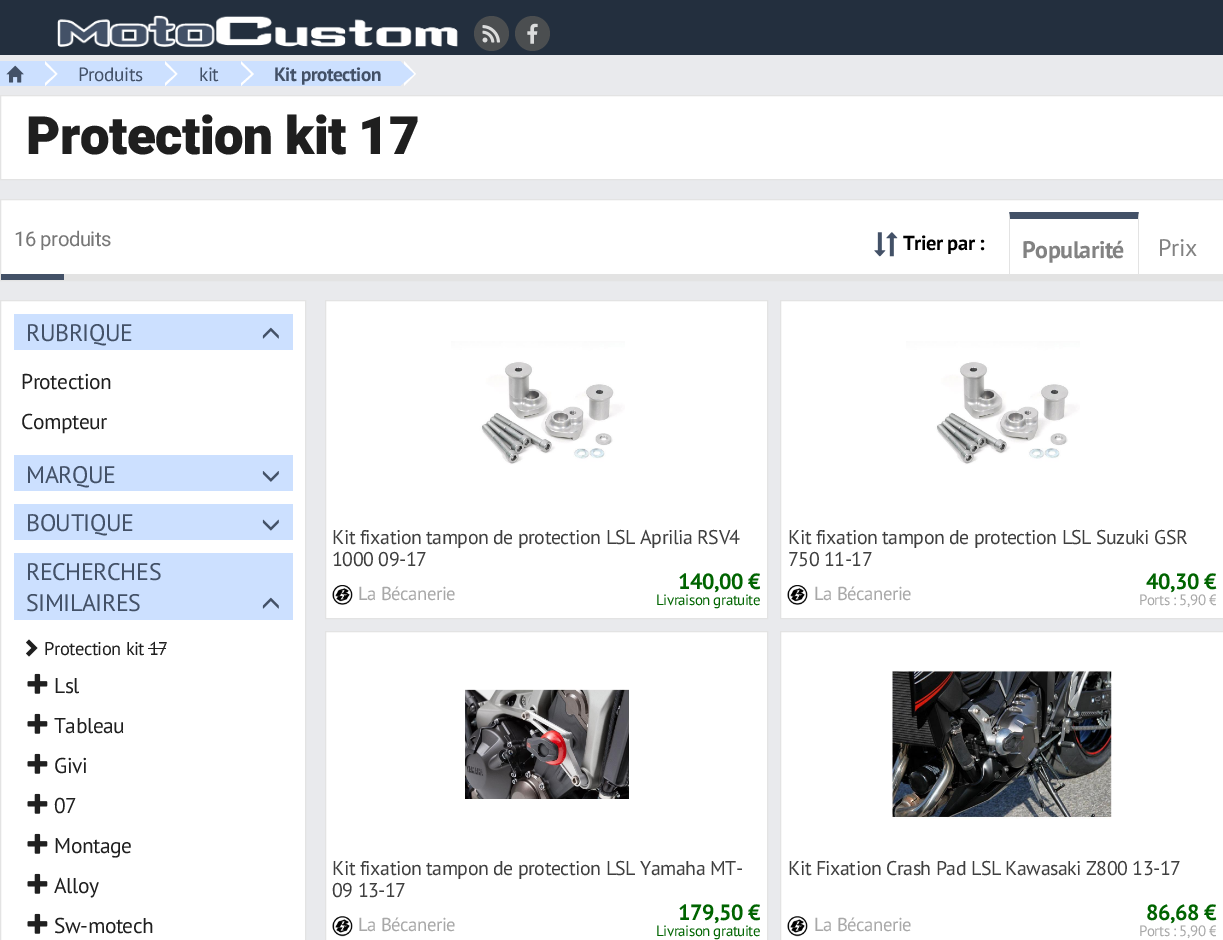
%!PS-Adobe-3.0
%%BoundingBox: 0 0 1223 940
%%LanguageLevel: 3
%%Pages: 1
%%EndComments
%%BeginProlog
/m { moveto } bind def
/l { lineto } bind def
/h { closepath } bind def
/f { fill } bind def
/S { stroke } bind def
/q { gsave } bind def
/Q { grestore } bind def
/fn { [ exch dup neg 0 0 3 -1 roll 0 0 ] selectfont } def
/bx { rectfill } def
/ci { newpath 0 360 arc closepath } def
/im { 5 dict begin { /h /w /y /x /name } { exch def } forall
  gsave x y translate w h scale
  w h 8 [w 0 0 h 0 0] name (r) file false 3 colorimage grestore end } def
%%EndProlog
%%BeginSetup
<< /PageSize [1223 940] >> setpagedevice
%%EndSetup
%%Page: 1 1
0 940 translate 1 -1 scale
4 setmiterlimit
0.914 0.918 0.929 setrgbcolor
0 0 1223 940 bx
0.137 0.184 0.243 setrgbcolor
0 0 1223 55 bx
(image0.raw) 57 15 401 32 im
0.294 0.306 0.314 setrgbcolor
491.5 33.5 17.5 ci f
(image1.raw) 482 25 18 18 im
532.5 33.5 17.5 ci f
(image2.raw) 527 23 11 21 im
0.8 0.878 1 setrgbcolor
0 61 400 25 bx
1 setgray
45 86 m 45 61 l 57.5 74 l h f
0.8 0.878 1 setrgbcolor
41 86 m 41 61 l 55 74 l h f
(image3.raw) 6 65 18 18 im
1 setgray
165 86 m 165 61 l 177.5 74 l h f
0.8 0.878 1 setrgbcolor
161 86 m 161 61 l 175 74 l h f
/PTSans-Regular 19.25 fn
0.263 0.318 0.404 setrgbcolor
78 81 m -0.48 0 (Produits) ashow
1 setgray
241 86 m 241 61 l 254 74 l h f
0.8 0.878 1 setrgbcolor
237.5 86 m 237.5 61 l 251 74 l h f
0.263 0.318 0.404 setrgbcolor
199 81 m -0.48 0 (kit) ashow
1 setgray
404 86 m 404 61 l 416 74 l h f
0.8 0.878 1 setrgbcolor
400 86 m 400 61 l 414 74 l h f
/PTSans-Bold 19.25 fn
0.263 0.318 0.404 setrgbcolor
274 81 m -0.48 0 (Kit protection) ashow
1 setgray
0.5 95.5 m 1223.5 95.5 l 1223.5 179.5 l 0.5 179.5 l h q f Q
0.89 setgray
S
/Heebo-Black 52.75 fn
0.122 setgray
26 154 m -0.48 0 (Protection kit 17) ashow
1 setgray
1 200 1222 74 bx
0.89 setgray
0.5 199.5 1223 81 rectstroke
/Heebo-Regular 20.25 fn
0.467 setgray
14 246 m -0.48 0 (16 produits) ashow
(image4.raw) 874 232 24 25 im
/PTSans-Bold 20.5 fn
0 setgray
903 250 m -0.48 0 (Trier par :) ashow
0.263 0.318 0.404 setrgbcolor
1009 212 m 1139 212 l 1138 219 l 1010 219 l h f
0.89 setgray
1139 212 m 1139 274 l 1138 274 l 1138 219 l h f
1009 274 m 1009 212 l 1010 219 l 1010 274 l h f
/PTSans-Bold 24 fn
0.51 setgray
1022 258 m -0.48 0 (Popularité) ashow
/PTSans-Regular 24 fn
1158 256 m -0.48 0 (Prix) ashow
0.89 setgray
64 274 1159 6 bx
0.263 0.318 0.404 setrgbcolor
1 274 63 6 bx
1 setgray
0.5 300.5 m 305.5 300.5 l 305.5 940.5 l 0.5 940.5 l h q f Q
0.89 setgray
S
0.8 0.878 1 setrgbcolor
14 314 279 36 bx
0.263 0.318 0.404 setrgbcolor
26 341 m -0.48 0 (RUBRIQUE) ashow
(image5.raw) 262 327 17 12 im
/PTSans-Regular 21.5 fn
0.122 setgray
21 389 m -0.48 0 (Protection) ashow
21 429 m -0.48 0 (Compteur) ashow
0.8 0.878 1 setrgbcolor
14 455 279 36 bx
/PTSans-Regular 24 fn
0.263 0.318 0.404 setrgbcolor
26 483 m -0.48 0 (MARQUE) ashow
(image6.raw) 262 471 17 11 im
0.8 0.878 1 setrgbcolor
14 504 279 36 bx
0.263 0.318 0.404 setrgbcolor
26 531 m -0.48 0 (BOUTIQUE) ashow
(image7.raw) 262 519 17 12 im
0.8 0.878 1 setrgbcolor
14 553 279 67 bx
0.263 0.318 0.404 setrgbcolor
26 580 m -0.48 0 (RECHERCHES) ashow
26 611 m -0.48 0 (SIMILAIRES) ashow
(image5.raw) 262 597 17 12 im
0.122 setgray
37.5 648 m 29 656.5 l 26 653.5 l 31.5 648 l 26 642.5 l 29 639.5 l h f
/PTSans-Regular 18.5 fn
44 655 m -0.48 0 (Protection kit 17) ashow
148 648 18 1 bx
(image8.raw) 27 673 21 21 im
/PTSans-Regular 21.5 fn
54 693 m -0.48 0 (Lsl) ashow
(image8.raw) 27 713 21 21 im
54 733 m -0.48 0 (Tableau) ashow
(image8.raw) 27 753 21 21 im
54 773 m -0.48 0 (Givi) ashow
(image8.raw) 27 793 21 21 im
54 813 m -0.48 0 (07) ashow
(image8.raw) 27 833 21 21 im
54 853 m -0.48 0 (Montage) ashow
(image8.raw) 27 873 21 21 im
54 893 m -0.48 0 (Alloy) ashow
(image8.raw) 27 913 21 21 im
54 933 m -0.48 0 (Sw-motech) ashow
1 setgray
325.5 300.5 m 767.5 300.5 l 767.5 618.5 l 325.5 618.5 l h q f Q
0.89 setgray
S
(image9.raw) 451 341 174 124 im
/PTSans-Regular 19.9 fn
0.247 setgray
332 544 m -0.48 0 (Kit fixation tampon de protection LSL Aprilia RSV4) ashow
332 566 m -0.48 0 (1000 09-17) ashow
(image10.raw) 332 585 21 20 im
/PTSans-Regular 18.75 fn
0.659 setgray
358 600 m -0.48 0 (La Bécanerie) ashow
q
656 571 104 38 rectclip
/PTSans-Bold 22 fn
0 0.392 0 setrgbcolor
678 589 m -0.48 0 (140,00 €) ashow
Q
/PTSans-Regular 15 fn
0 0.392 0 setrgbcolor
656 605 m -0.48 0 (Livraison gratuite) ashow
1 setgray
780.5 300.5 m 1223.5 300.5 l 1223.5 618.5 l 780.5 618.5 l h q f Q
0.89 setgray
S
(image11.raw) 906 341 174 124 im
/PTSans-Regular 19.9 fn
0.247 setgray
788 544 m -0.48 0 (Kit fixation tampon de protection LSL Suzuki GSR) ashow
788 566 m -0.48 0 (750 11-17) ashow
(image10.raw) 787 585 21 20 im
/PTSans-Regular 18.75 fn
0.659 setgray
814 600 m -0.48 0 (La Bécanerie) ashow
/PTSans-Bold 22 fn
0 0.392 0 setrgbcolor
1146 589 m -0.48 0 (40,30 €) ashow
q
1139 590 77 19 rectclip
/PTSans-Regular 15 fn
0.659 setgray
1139 605 m -0.48 0 (Ports : 5,90 €) ashow
Q
1 setgray
325.5 631.5 m 767.5 631.5 l 767.5 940.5 l 325.5 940.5 l h q f Q
0.89 setgray
S
(image12.raw) 465 688 164 112 im
/PTSans-Regular 19.9 fn
0.247 setgray
332 875 m -0.48 0 (Kit fixation tampon de protection LSL Yamaha MT-) ashow
332 897 m -0.48 0 (09 13-17) ashow
(image13.raw) 332 916 21 21 im
/PTSans-Regular 18.75 fn
0.659 setgray
358 931 m -0.48 0 (La Bécanerie) ashow
q
656 903 104 37 rectclip
/PTSans-Bold 22 fn
0 0.392 0 setrgbcolor
678 920 m -0.48 0 (179,50 €) ashow
Q
/PTSans-Regular 15 fn
0 0.392 0 setrgbcolor
656 936 m -0.48 0 (Livraison gratuite) ashow
1 setgray
780.5 631.5 m 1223.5 631.5 l 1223.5 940.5 l 780.5 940.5 l h q f Q
0.89 setgray
S
(image14.raw) 892 670 220 149 im
/PTSans-Regular 19.9 fn
0.247 setgray
788 875 m -0.48 0 (Kit Fixation Crash Pad LSL Kawasaki Z800 13-17) ashow
(image13.raw) 787 916 21 21 im
/PTSans-Regular 18.75 fn
0.659 setgray
814 931 m -0.48 0 (La Bécanerie) ashow
/PTSans-Bold 22 fn
0 0.392 0 setrgbcolor
1146 920 m -0.48 0 (86,68 €) ashow
q
1139 921 77 19 rectclip
/PTSans-Regular 15 fn
0.659 setgray
1139 936 m -0.48 0 (Ports : 5,90 €) ashow
Q
showpage
%%EOF
